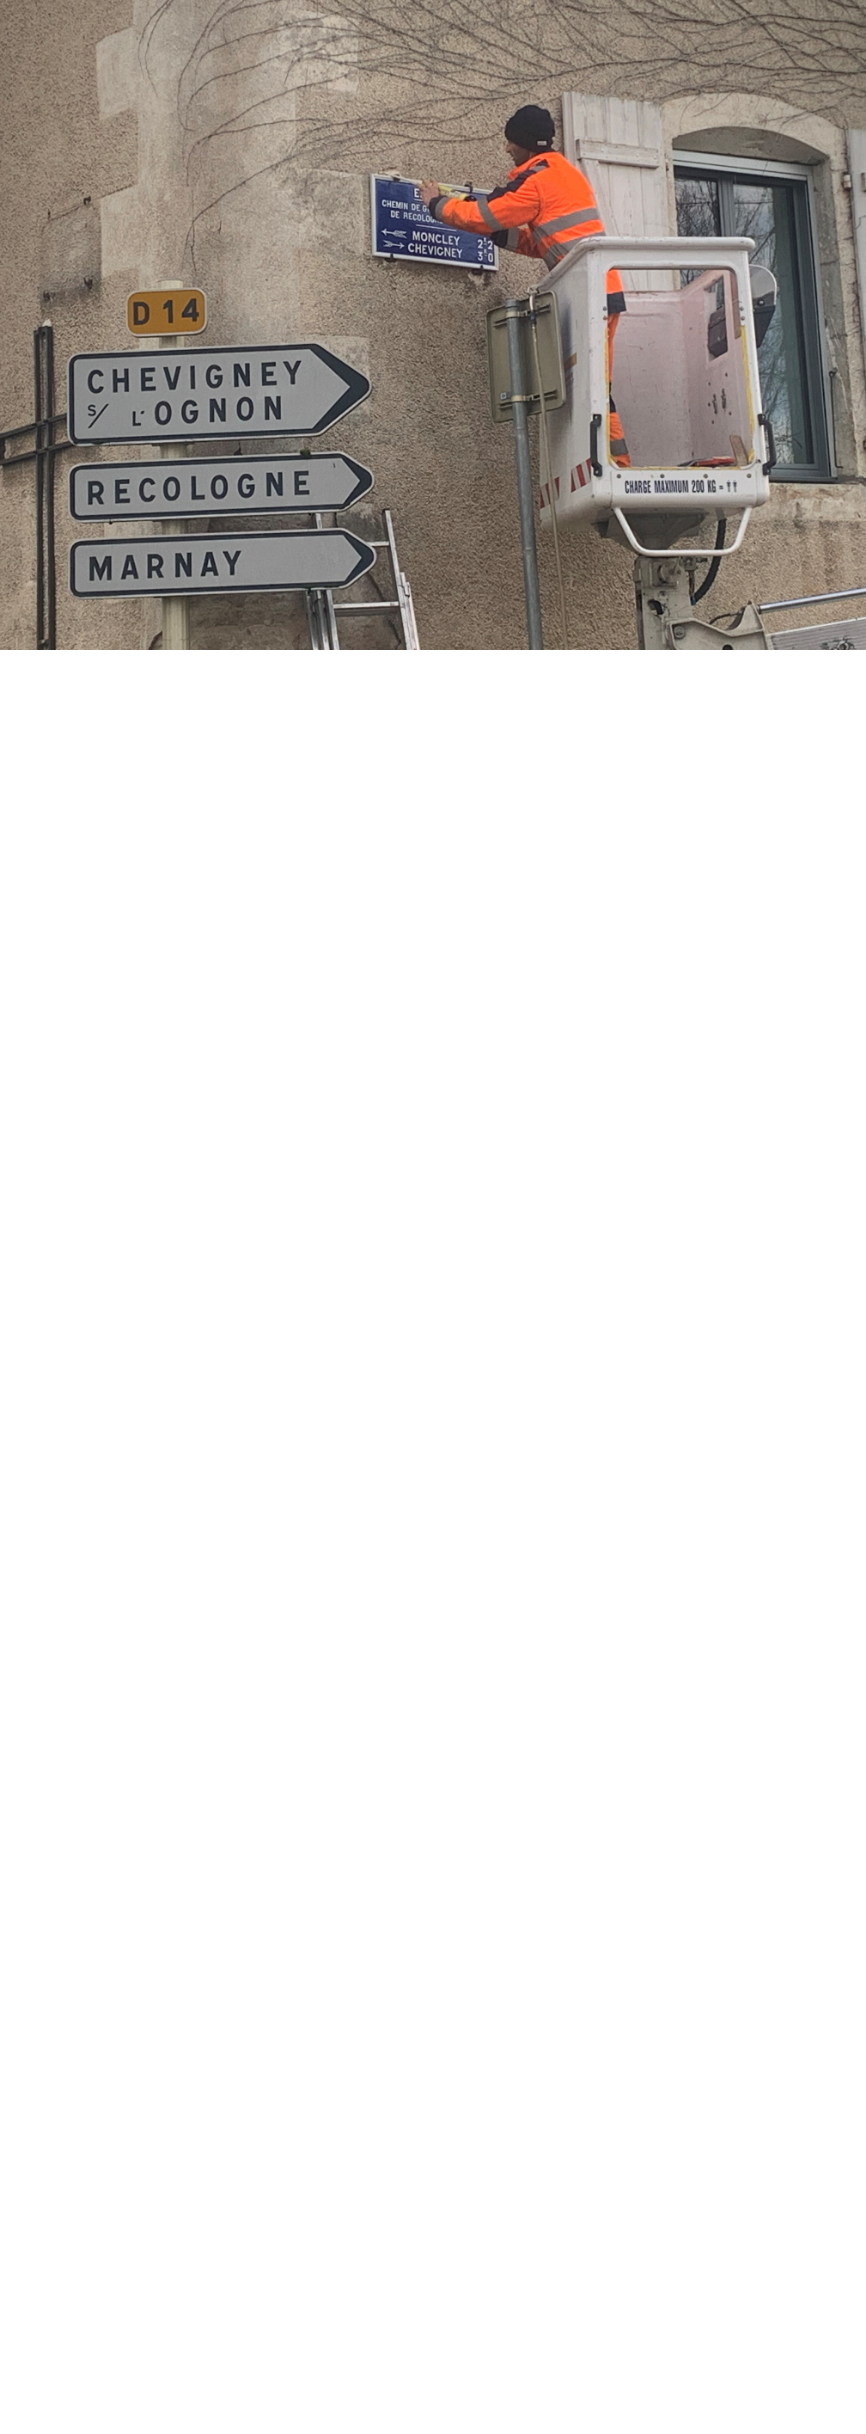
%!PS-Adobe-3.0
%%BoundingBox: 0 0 866 2434
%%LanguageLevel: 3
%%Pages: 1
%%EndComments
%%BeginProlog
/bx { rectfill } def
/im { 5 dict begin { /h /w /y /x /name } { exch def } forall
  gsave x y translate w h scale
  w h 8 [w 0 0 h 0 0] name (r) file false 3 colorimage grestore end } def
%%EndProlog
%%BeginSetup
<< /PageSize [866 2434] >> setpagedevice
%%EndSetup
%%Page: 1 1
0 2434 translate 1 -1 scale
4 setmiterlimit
1 setgray
0 0 866 2434 bx
(image0.raw) 0 0 866 650 im
showpage
%%EOF
